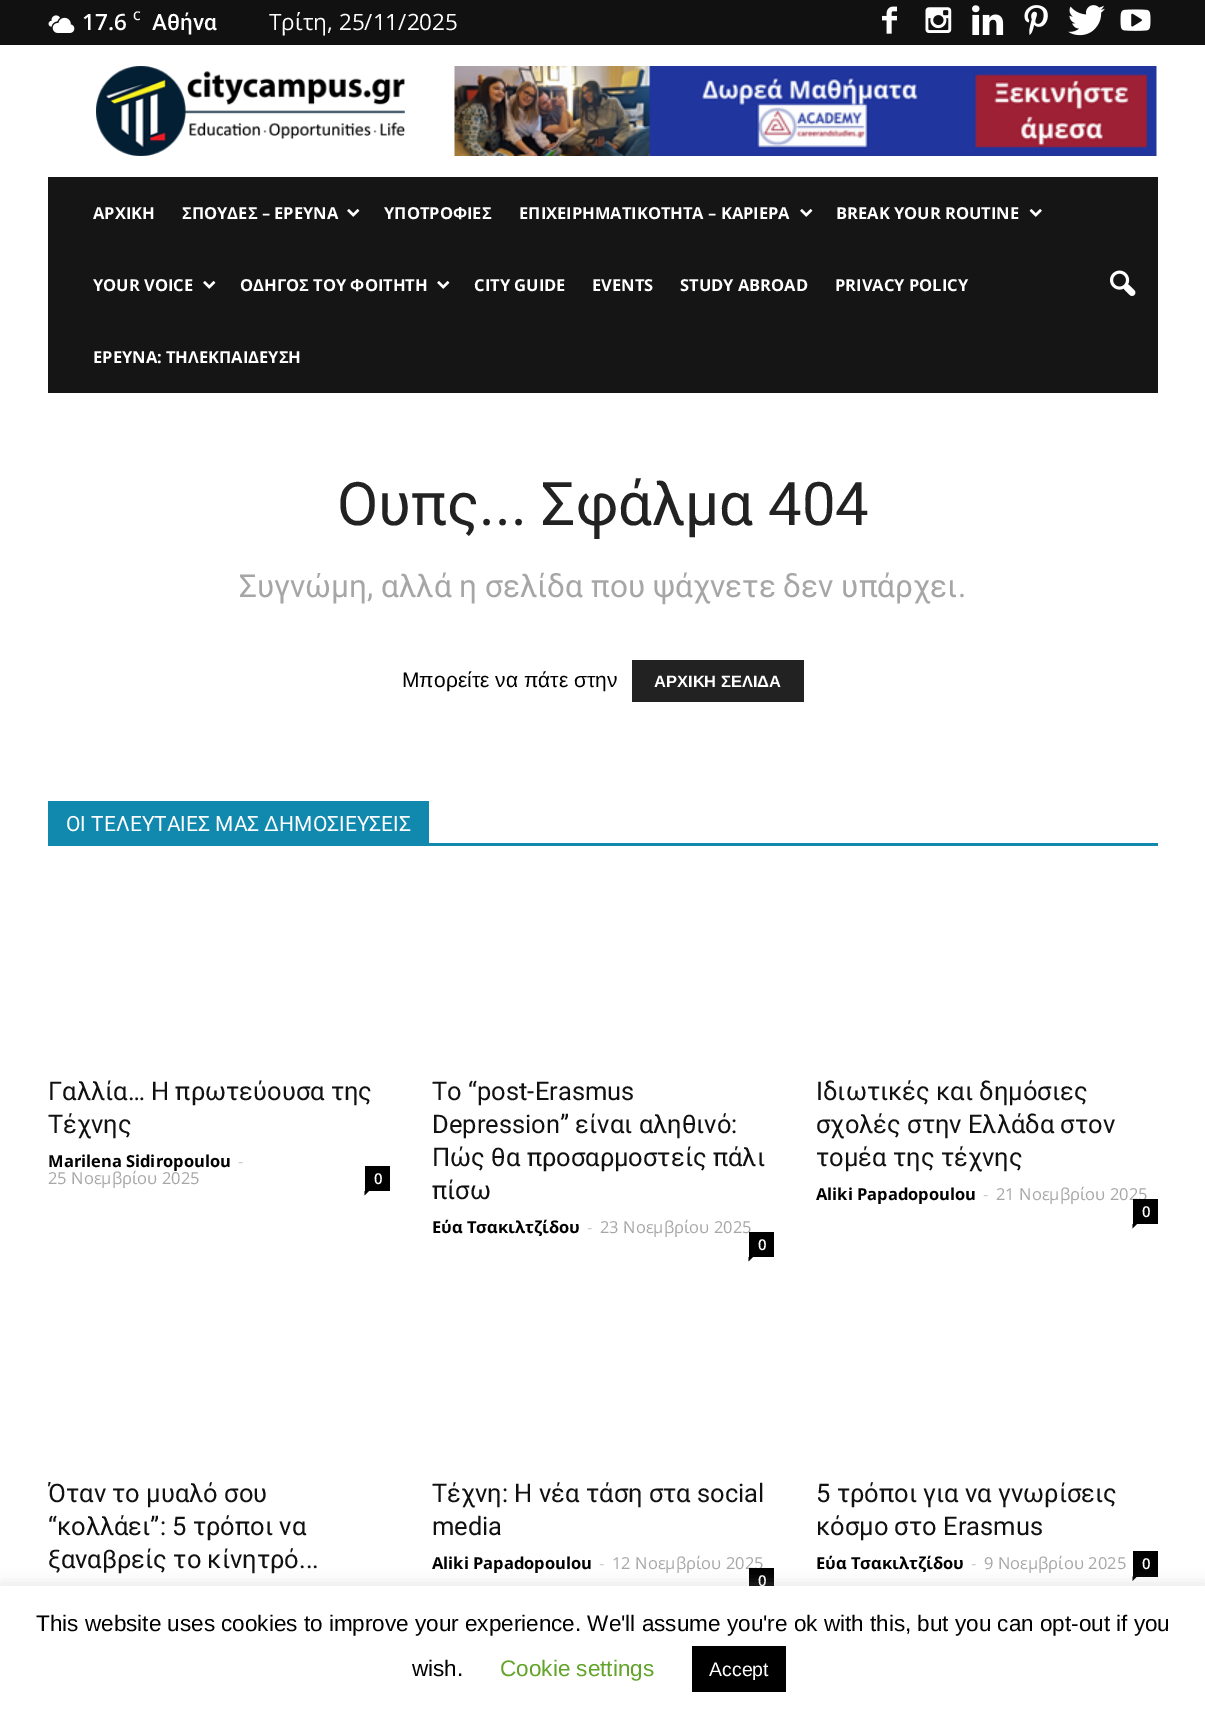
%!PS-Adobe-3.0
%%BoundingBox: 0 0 1205 1717
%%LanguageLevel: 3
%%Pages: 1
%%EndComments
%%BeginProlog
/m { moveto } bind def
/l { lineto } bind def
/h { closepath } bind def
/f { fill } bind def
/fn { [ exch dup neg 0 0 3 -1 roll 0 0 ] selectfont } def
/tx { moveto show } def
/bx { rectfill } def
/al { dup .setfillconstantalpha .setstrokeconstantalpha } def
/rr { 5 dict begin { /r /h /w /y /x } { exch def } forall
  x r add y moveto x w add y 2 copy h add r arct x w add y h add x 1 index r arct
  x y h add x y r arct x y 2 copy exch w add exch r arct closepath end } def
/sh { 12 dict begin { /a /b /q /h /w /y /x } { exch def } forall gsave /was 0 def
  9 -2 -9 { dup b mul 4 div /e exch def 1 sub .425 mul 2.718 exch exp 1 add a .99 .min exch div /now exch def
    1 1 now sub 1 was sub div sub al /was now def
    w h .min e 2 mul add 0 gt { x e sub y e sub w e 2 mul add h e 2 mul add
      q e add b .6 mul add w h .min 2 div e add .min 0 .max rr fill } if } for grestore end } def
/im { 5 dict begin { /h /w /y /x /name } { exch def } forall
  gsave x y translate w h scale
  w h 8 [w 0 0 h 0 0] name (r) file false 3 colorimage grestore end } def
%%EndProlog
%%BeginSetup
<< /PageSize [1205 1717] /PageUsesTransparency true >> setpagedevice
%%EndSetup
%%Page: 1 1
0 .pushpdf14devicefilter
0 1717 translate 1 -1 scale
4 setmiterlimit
1 setgray
0 0 1205 1717 bx
0.067 setgray
0 0 1205 45 bx
(image0.raw) 48 15 27 18 im
/OpenSans-SemiBold 22.5 fn
1 setgray
(17.6) 82 30 tx
/OpenSans-SemiBold 12 fn
(C) 133 20 tx
/Roboto-Medium 22.5 fn
(Αθήνα) 152 30 tx
/OpenSans-Regular 22.5 fn
(Τρίτη, 25/11/2025) 269 30 tx
(image1.raw) 882 6 15 28 im
(image2.raw) 925 7 27 26 im
(image3.raw) 972 5 32 30 im
(image4.raw) 1024 5 24 30 im
(image5.raw) 1068 5 37 31 im
(image6.raw) 1120 9 31 22 im
(image7.raw) 96 66 309 90 im
(image8.raw) 454 66 703 90 im
0.082 setgray
48 177 1110 216 bx
/OpenSans-Bold 16.5 fn
1 setgray
(ΑΡΧΙΚΗ) 93 219 tx
(ΣΠΟΥΔΕΣ – ΕΡΕΥΝΑ) 182 219 tx
(image9.raw) 347 209 13 8 im
(ΥΠΟΤΡOΦΙΕΣ) 384 219 tx
(ΕΠΙΧΕΙΡΗΜΑΤΙΚΟΤΗΤΑ – ΚΑΡΙΕΡΑ) 519 219 tx
(image9.raw) 800 209 13 8 im
(BREAK YOUR ROUTINE) 836 219 tx
(image10.raw) 1029 209 13 8 im
(YOUR VOICE) 93 291 tx
(image9.raw) 203 281 13 8 im
(ΟΔΗΓΟΣ ΤΟΥ ΦΟΙΤΗΤΗ) 240 291 tx
(image9.raw) 437 281 13 8 im
(CITY GUIDE) 474 291 tx
(EVENTS) 592 291 tx
(STUDY ABROAD) 680 291 tx
(PRIVACY POLICY) 835 291 tx
(ΕΡΕΥΝΑ: ΤΗΛΕΚΠΑΙΔΕΥΣΗ) 93 363 tx
(image11.raw) 1110 270 26 26 im
/Roboto-Regular 60 fn
0.133 setgray
(Ουπς... Σφάλμα 404) 337 525 tx
/Roboto-Regular 31.5 fn
0.651 setgray
(Συγνώμη, αλλά η σελίδα που ψάχνετε δεν υπάρχει.) 239 597 tx
/LiberationSans-Regular 21 fn
0 setgray
(Μπορείτε να πάτε στην) 402 687 tx
0.133 setgray
632 660 172 42 bx
/LiberationSans-Bold 16.5 fn
1 setgray
(ΑΡΧΙΚΗ ΣΕΛΙΔΑ) 654 687 tx
0.067 0.533 0.678 setrgbcolor
48 843 1110 3 bx
48 801 381 42 bx
/Roboto-Regular 21 fn
1 setgray
(ΟΙ ΤΕΛΕΥΤΑΙΕΣ ΜΑΣ ΔΗΜΟΣΙΕΥΣΕΙΣ) 66 831 tx
/Roboto-Regular 25.5 fn
0.067 setgray
(Γαλλία… Η πρωτεύουσα της) 48 1100 tx
(Τέχνης) 48 1133 tx
/OpenSans-Bold 16.5 fn
0 setgray
(Marilena Sidiropoulou) 48 1167 tx
/OpenSans-Regular 16.5 fn
0.8 setgray
(-) 238 1167 tx
0.651 setgray
(25 Νοεμβρίου 2025) 48 1184 tx
0 setgray
365 1166 25 25 bx
/OpenSans-SemiBold 15 fn
1 setgray
(0) 374 1184 tx
0 setgray
364.5 1191 m 369 1191 l 364.5 1195.5 l h f
/Roboto-Regular 25.5 fn
0.067 setgray
(Το “post-Erasmus) 432 1100 tx
(Depression” είναι αληθινό:) 432 1133 tx
(Πώς θα προσαρμοστείς πάλι) 432 1166 tx
(πίσω) 432 1199 tx
/OpenSans-Bold 16.5 fn
0 setgray
(Εύα Τσακιλτζίδου) 432 1233 tx
/OpenSans-Regular 16.5 fn
0.8 setgray
(-) 587 1233 tx
0.651 setgray
(23 Νοεμβρίου 2025) 600 1233 tx
0 setgray
749 1232 25 25 bx
/OpenSans-SemiBold 15 fn
1 setgray
(0) 758 1250 tx
0 setgray
748.5 1257 m 753 1257 l 748.5 1261.5 l h f
/Roboto-Regular 25.5 fn
0.067 setgray
(Ιδιωτικές και δημόσιες) 816 1100 tx
(σχολές στην Ελλάδα στον) 816 1133 tx
(τομέα της τέχνης) 816 1166 tx
/OpenSans-Bold 16.5 fn
0 setgray
(Aliki Papadopoulou) 816 1200 tx
/OpenSans-Regular 16.5 fn
0.8 setgray
(-) 983 1200 tx
0.651 setgray
(21 Νοεμβρίου 2025) 996 1200 tx
0 setgray
1133 1199 25 25 bx
/OpenSans-SemiBold 15 fn
1 setgray
(0) 1142 1217 tx
0 setgray
1132.5 1224 m 1137 1224 l 1132.5 1228.5 l h f
/Roboto-Regular 25.5 fn
0.067 setgray
(Όταν το μυαλό σου) 48 1502 tx
(“κολλάει”: 5 τρόποι να) 48 1535 tx
(ξαναβρείς το κίνητρό...) 48 1568 tx
(Τέχνη: Η νέα τάση στα social) 432 1502 tx
(media) 432 1535 tx
/OpenSans-Bold 16.5 fn
0 setgray
(Aliki Papadopoulou) 432 1569 tx
/OpenSans-Regular 16.5 fn
0.8 setgray
(-) 599 1569 tx
0.651 setgray
(12 Νοεμβρίου 2025) 612 1569 tx
0 setgray
749 1568 25 18 bx
/OpenSans-SemiBold 15 fn
1 setgray
(0) 758 1586 tx
/Roboto-Regular 25.5 fn
0.067 setgray
(5 τρόποι για να γνωρίσεις) 816 1502 tx
(κόσμο στο Erasmus) 816 1535 tx
/OpenSans-Bold 16.5 fn
0 setgray
(Εύα Τσακιλτζίδου) 816 1569 tx
/OpenSans-Regular 16.5 fn
0.8 setgray
(-) 971 1569 tx
0.651 setgray
(9 Νοεμβρίου 2025) 984 1569 tx
0 setgray
1133 1551 25 26 bx
/OpenSans-SemiBold 15 fn
1 setgray
(0) 1142 1569 tx
0 setgray
1132.5 1576.5 m 1137 1576.5 l 1132.5 1581 l h f
0.675 0.671 0.671 setrgbcolor
0 1584 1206 132 0 7.5 0.3 sh
1 setgray
0 1586 1205 131 bx
/LiberationSans-Regular 22.5 fn
0 setgray
(This website uses cookies to improve your experience. We'll assume you're ok with this, but you can opt-out if you) 36 1631 tx
(wish.) 412 1676 tx
0.384 0.639 0.161 setrgbcolor
(Cookie settings) 500 1676 tx
0 setgray
692 1646 94 46 bx
/LiberationSans-Regular 19.5 fn
1 setgray
(Accept) 709 1676 tx
.poppdf14devicefilter showpage
%%EOF
